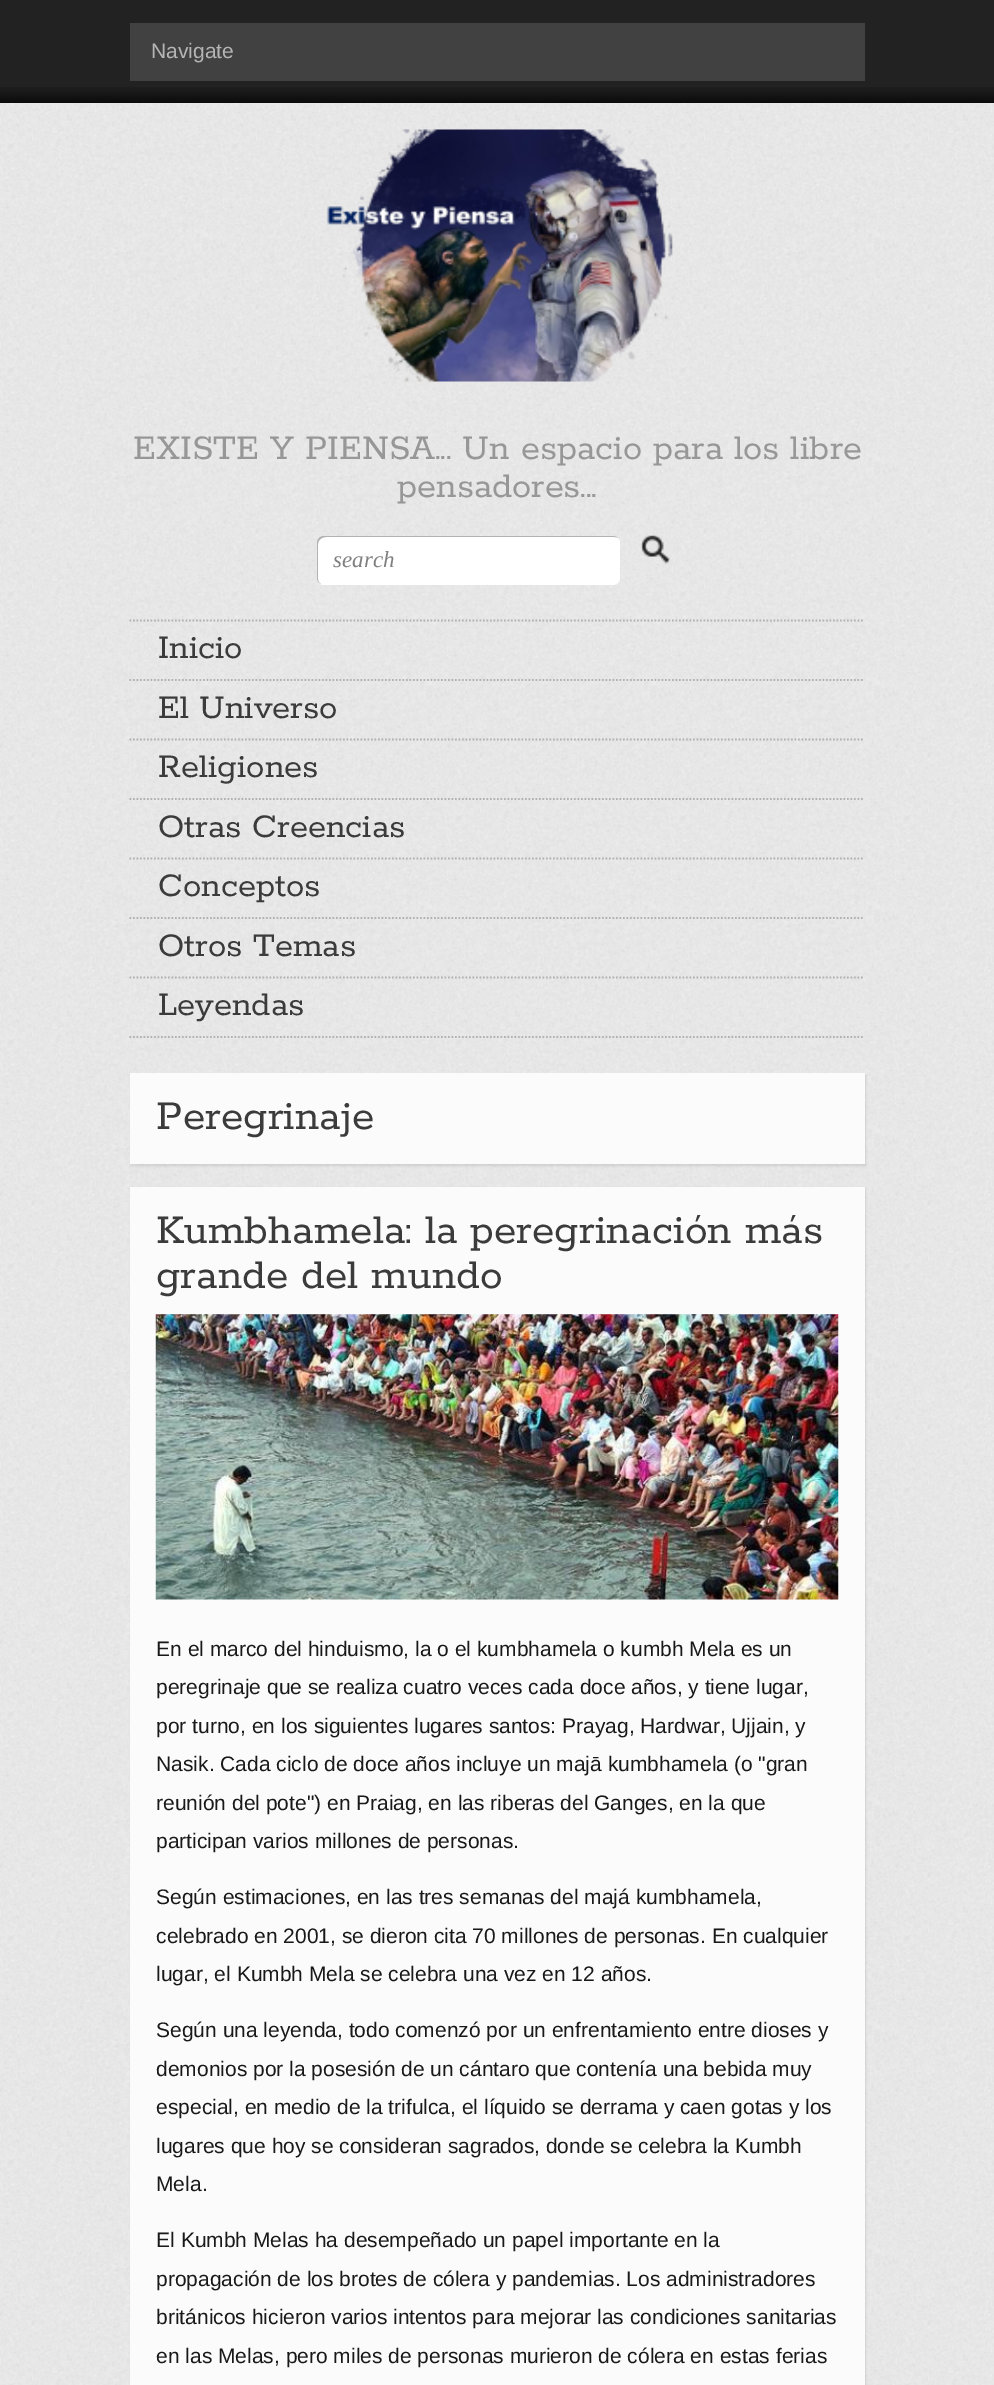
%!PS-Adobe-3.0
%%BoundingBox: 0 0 994 2385
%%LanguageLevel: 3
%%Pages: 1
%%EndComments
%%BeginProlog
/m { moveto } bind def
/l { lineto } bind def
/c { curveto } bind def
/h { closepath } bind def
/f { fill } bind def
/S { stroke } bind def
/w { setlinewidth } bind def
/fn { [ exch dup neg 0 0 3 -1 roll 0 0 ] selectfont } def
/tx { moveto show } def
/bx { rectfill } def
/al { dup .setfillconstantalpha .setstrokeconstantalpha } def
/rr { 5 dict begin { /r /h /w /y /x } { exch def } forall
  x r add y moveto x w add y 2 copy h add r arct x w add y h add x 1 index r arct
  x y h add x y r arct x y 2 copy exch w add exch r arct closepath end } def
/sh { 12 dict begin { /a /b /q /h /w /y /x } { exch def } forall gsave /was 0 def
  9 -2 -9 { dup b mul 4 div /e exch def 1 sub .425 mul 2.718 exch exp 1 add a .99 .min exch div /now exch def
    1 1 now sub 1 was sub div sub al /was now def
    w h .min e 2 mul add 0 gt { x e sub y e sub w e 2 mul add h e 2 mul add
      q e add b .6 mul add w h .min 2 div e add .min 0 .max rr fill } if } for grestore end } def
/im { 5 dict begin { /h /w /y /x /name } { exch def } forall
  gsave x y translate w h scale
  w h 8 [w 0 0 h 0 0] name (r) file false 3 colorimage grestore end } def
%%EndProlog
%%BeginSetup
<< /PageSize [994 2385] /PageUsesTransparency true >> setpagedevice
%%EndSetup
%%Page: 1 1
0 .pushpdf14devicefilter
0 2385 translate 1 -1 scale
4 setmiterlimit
0.133 setgray
0 0 994 2385 bx
(image0.raw) 0 87 994 17 im
0.255 setgray
130 23 735 58 bx
/LiberationSans-Regular 21 fn
0.71 setgray
(Navigate) 151 58 tx
(image1.raw) 0 103 994 2282 im
(image2.raw) 326 129 347 253 im
/Rokkitt-Regular 38.5 fn
0.592 setgray
(EXISTE Y PIENSA... Un espacio para los libre) 133 459 tx
(pensadores...) 397 497 tx
1 setgray
317 536 303 49 7 rr f
0.3 al
0 setgray
326 537 m 614 537 l 616 537 617 537 618 538 c 617 537 615 536 613 536 c 324 536 l 320 536 317 539 317 543 c 317 578 l 317 581 319 583 321 584 c 319 583 318 581 318 579 c 318 544 l 318 540 322 537 326 537 c h f
/LiberationSerif-Italic 23 fn
1 al
0.502 setgray
(search) 333 567 tx
(image3.raw) 641 535 29 29 im
0.698 setgray
1.8 w
[1.75 1.75] 0 setdash
129.5 1037 m 864.5 1037 l S
129.5 620.5 m 864.5 620.5 l S
/Rokkitt-Regular 36.75 fn
0.231 setgray
(Inicio) 158 658 tx
0.698 setgray
129.5 680 m 864.5 680 l S
0.231 setgray
(El Universo) 158 718 tx
0.698 setgray
129.5 739.5 m 864.5 739.5 l S
0.231 setgray
(Religiones) 158 777 tx
0.698 setgray
129.5 799 m 864.5 799 l S
0.231 setgray
(Otras Creencias) 158 837 tx
0.698 setgray
129.5 858.5 m 864.5 858.5 l S
0.231 setgray
(Conceptos) 158 896 tx
0.698 setgray
129.5 918 m 864.5 918 l S
0.231 setgray
(Otros Temas) 158 956 tx
0.698 setgray
129.5 977.5 m 864.5 977.5 l S
0.231 setgray
(Leyendas) 158 1015 tx
0 setgray
131 1075 735 91 0 1 0.1 sh
0.984 setgray
130 1073 735 91 bx
/Rokkitt-Regular 45.5 fn
0.231 setgray
(Peregrinaje) 156 1129 tx
0 setgray
131 1188 735 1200 0 1 0.1 sh
0.984 setgray
130 1187 735 1198 bx
0.231 setgray
(Kumbhamela: la peregrinación más) 156 1243 tx
(grande del mundo) 156 1288 tx
(image4.raw) 155 1314 684 286 im
/LiberationSans-Regular 21 fn
0.098 setgray
(En el marco del hinduismo, la o el kumbhamela o kumbh Mela es un) 156 1656 tx
(peregrinaje que se realiza cuatro veces cada doce años, y tiene lugar,) 156 1694 tx
(por turno, en los siguientes lugares santos: Prayag, Hardwar, Ujjain, y) 156 1733 tx
(Nasik. Cada ciclo de doce años incluye un majā kumbhamela \(o "gran) 156 1771 tx
(reunión del pote"\) en Praiag, en las riberas del Ganges, en la que) 156 1810 tx
(participan varios millones de personas.) 156 1848 tx
(Según estimaciones, en las tres semanas del majá kumbhamela,) 156 1904 tx
(celebrado en 2001, se dieron cita 70 millones de personas. En cualquier) 156 1943 tx
(lugar, el Kumbh Mela se celebra una vez en 12 años.) 156 1981 tx
(Según una leyenda, todo comenzó por un enfrentamiento entre dioses y) 156 2037 tx
(demonios por la posesión de un cántaro que contenía una bebida muy) 156 2076 tx
(especial, en medio de la trifulca, el líquido se derrama y caen gotas y los) 156 2114 tx
(lugares que hoy se consideran sagrados, donde se celebra la Kumbh) 156 2153 tx
(Mela.) 156 2191 tx
(El Kumbh Melas ha desempeñado un papel importante en la) 156 2247 tx
(propagación de los brotes de cólera y pandemias. Los administradores) 156 2286 tx
(británicos hicieron varios intentos para mejorar las condiciones sanitarias) 156 2324 tx
(en las Melas, pero miles de personas murieron de cólera en estas ferias) 156 2363 tx
.poppdf14devicefilter showpage
%%EOF
